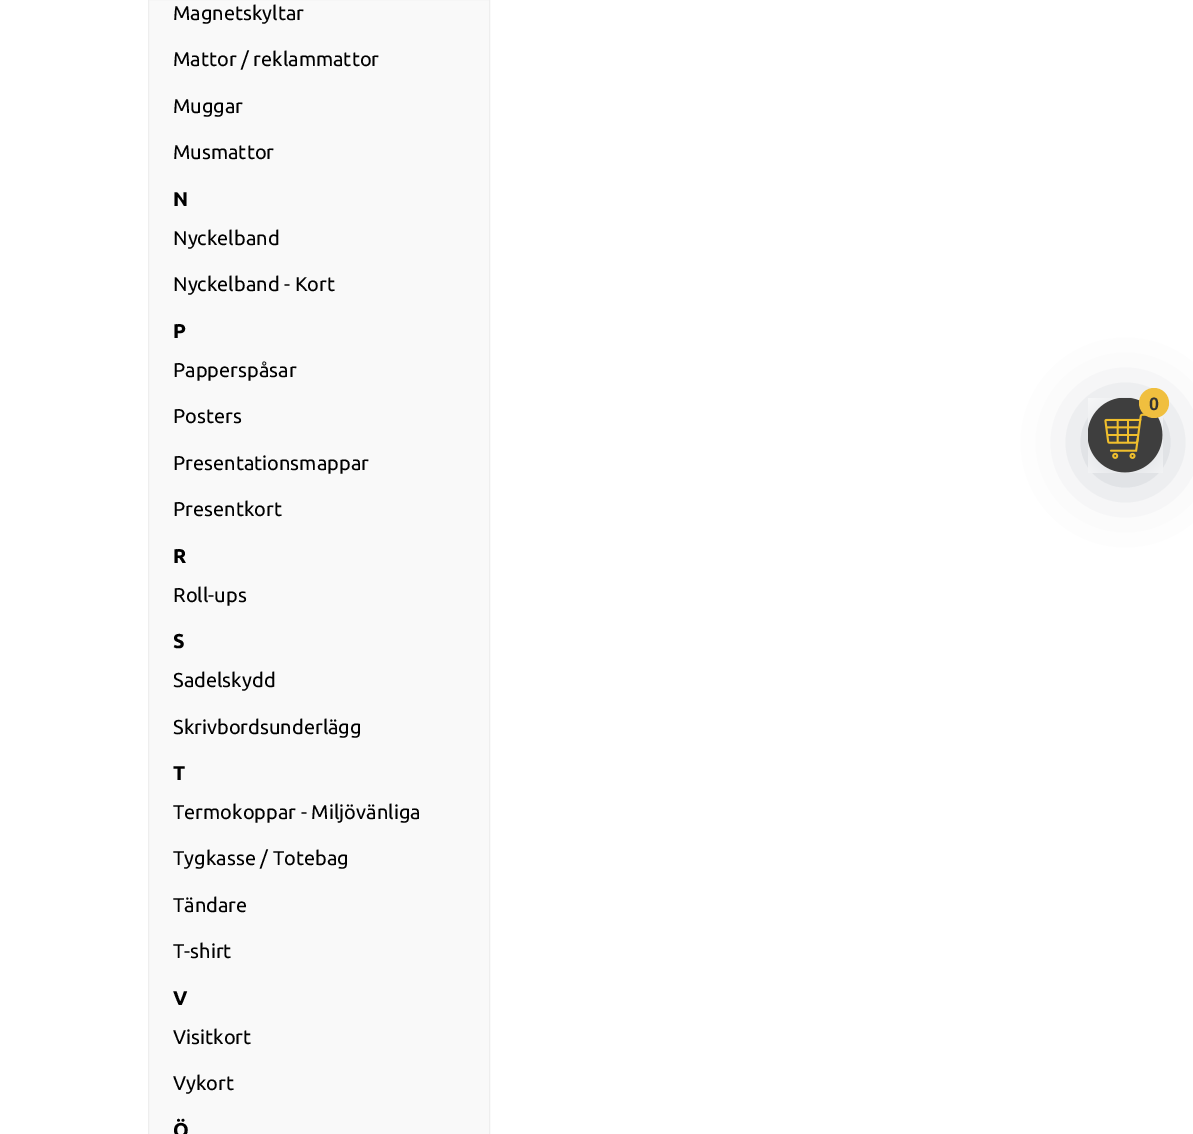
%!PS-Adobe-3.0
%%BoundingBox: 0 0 1193 1134
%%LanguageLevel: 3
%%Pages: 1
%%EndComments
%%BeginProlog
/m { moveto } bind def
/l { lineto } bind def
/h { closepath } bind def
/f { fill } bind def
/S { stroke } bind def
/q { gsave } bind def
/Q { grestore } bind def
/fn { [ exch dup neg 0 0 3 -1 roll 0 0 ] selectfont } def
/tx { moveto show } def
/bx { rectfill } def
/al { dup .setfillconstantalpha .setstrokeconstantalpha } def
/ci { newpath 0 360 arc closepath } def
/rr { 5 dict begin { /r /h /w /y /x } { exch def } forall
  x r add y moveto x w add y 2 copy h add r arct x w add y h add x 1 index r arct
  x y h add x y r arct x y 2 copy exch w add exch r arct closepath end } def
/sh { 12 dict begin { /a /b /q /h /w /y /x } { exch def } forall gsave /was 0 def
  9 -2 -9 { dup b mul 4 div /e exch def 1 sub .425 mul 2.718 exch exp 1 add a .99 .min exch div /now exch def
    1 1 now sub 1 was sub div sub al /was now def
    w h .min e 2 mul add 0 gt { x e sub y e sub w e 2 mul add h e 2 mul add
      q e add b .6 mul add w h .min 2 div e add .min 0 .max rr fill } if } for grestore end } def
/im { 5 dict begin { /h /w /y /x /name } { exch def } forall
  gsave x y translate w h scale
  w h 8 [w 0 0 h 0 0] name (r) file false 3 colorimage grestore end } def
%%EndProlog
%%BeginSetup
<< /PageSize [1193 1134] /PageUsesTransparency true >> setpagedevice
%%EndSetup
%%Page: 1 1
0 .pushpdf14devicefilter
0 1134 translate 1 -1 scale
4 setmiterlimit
1 setgray
0 0 1193 1134 bx
0.976 setgray
148.5 -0.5 m 489.5 -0.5 l 489.5 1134.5 l 148.5 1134.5 l h q f Q
0.933 setgray
S
/Ubuntu-Regular 20 fn
0 setgray
(Magnetskyltar) 173 20 tx
(Mattor / reklammattor) 173 66 tx
(Muggar) 173 113 tx
(Musmattor) 173 159 tx
/Ubuntu-Bold 20 fn
(N) 173 206 tx
/Ubuntu-Regular 20 fn
(Nyckelband) 173 245 tx
(Nyckelband - Kort) 173 291 tx
/Ubuntu-Bold 20 fn
(P) 173 338 tx
/Ubuntu-Regular 20 fn
(Papperspåsar) 173 377 tx
(Posters) 173 423 tx
(Presentationsmappar) 173 470 tx
(Presentkort) 173 516 tx
/Ubuntu-Bold 20 fn
(R) 173 563 tx
/Ubuntu-Regular 20 fn
(Roll-ups) 173 602 tx
/Ubuntu-Bold 20 fn
(S) 173 648 tx
/Ubuntu-Regular 20 fn
(Sadelskydd) 173 687 tx
(Skrivbordsunderlägg) 173 734 tx
/Ubuntu-Bold 20 fn
(T) 173 780 tx
/Ubuntu-Regular 20 fn
(Termokoppar - Miljövänliga) 173 819 tx
(Tygkasse / Totebag) 173 865 tx
(Tändare) 173 912 tx
(T-shirt) 173 958 tx
/Ubuntu-Bold 20 fn
(V) 173 1005 tx
/Ubuntu-Regular 20 fn
(Visitkort) 173 1044 tx
(Vykort) 173 1090 tx
/Ubuntu-Bold 20 fn
(Ö) 173 1137 tx
0 0.071 0.18 setrgbcolor
1088 405 75 75 37.5 30 0.24 sh
(image0.raw) 1088 398 75 75 im
0.941 0.749 0.247 setrgbcolor
1154 403 15 ci f
/LiberationSans-Bold 18 fn
0.2 setgray
(0) 1149 410 tx
.poppdf14devicefilter showpage
%%EOF
